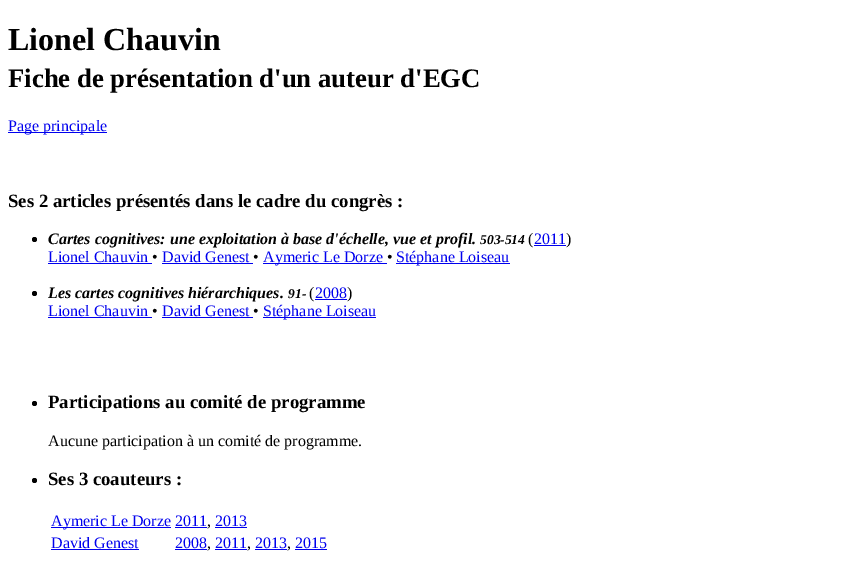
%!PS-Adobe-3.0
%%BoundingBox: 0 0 860 565
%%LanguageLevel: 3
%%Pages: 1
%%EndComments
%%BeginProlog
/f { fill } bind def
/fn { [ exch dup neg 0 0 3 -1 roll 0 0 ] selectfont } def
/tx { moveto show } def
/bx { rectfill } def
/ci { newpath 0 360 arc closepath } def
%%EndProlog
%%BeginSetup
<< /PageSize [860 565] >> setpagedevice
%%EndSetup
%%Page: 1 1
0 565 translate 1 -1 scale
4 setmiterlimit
1 setgray
0 0 860 565 bx
/LiberationSerif-Bold 32 fn
0 setgray
(Lionel Chauvin) 8 50 tx
/LiberationSerif-Bold 26.7 fn
(Fiche de présentation d'un auteur d'EGC) 8 87 tx
0 0 0.933 setrgbcolor
8 132 99 1 bx
/LiberationSerif-Regular 16 fn
(Page principale) 8 131 tx
/LiberationSerif-Bold 18.75 fn
0 setgray
(Ses 2 articles présentés dans le cadre du congrès :) 8 207 tx
34.5 239.5 2.5 ci f
/LiberationSerif-BoldItalic 16 fn
(Cartes cognitives: une exploitation à base d'échelle, vue et profil.) 48 244 tx
/LiberationSerif-BoldItalic 13.5 fn
(503-514) 480 244 tx
/LiberationSerif-Regular 16 fn
(\() 528 244 tx
0 0 0.933 setrgbcolor
(2011) 534 244 tx
534 245 32 1 bx
0 setgray
(\)) 566 244 tx
0 0 0.933 setrgbcolor
(Lionel Chauvin) 48 262 tx
48 263 104 1 bx
0 setgray
(•) 152 262 tx
0 0 0.933 setrgbcolor
(David Genest) 162 262 tx
162 263 91 1 bx
0 setgray
(•) 253 262 tx
0 0 0.933 setrgbcolor
263 263 124 1 bx
(Aymeric Le Dorze) 263 262 tx
0 setgray
(•) 387 262 tx
0 0 0.933 setrgbcolor
396 263 114 1 bx
(Stéphane Loiseau) 396 262 tx
0 setgray
34.5 293.5 2.5 ci f
/LiberationSerif-BoldItalic 16 fn
(Les cartes cognitives hiérarchiques.) 48 298 tx
/LiberationSerif-BoldItalic 13.5 fn
(91-) 288 298 tx
/LiberationSerif-Regular 16 fn
(\() 309 298 tx
0 0 0.933 setrgbcolor
(2008) 315 298 tx
315 299 32 1 bx
0 setgray
(\)) 347 298 tx
0 0 0.933 setrgbcolor
(Lionel Chauvin) 48 316 tx
48 317 104 1 bx
0 setgray
(•) 152 316 tx
0 0 0.933 setrgbcolor
(David Genest) 162 316 tx
162 317 91 1 bx
0 setgray
(•) 253 316 tx
0 0 0.933 setrgbcolor
263 317 113 1 bx
(Stéphane Loiseau) 263 316 tx
0 setgray
34.5 403.5 2.5 ci f
/LiberationSerif-Bold 18.75 fn
(Participations au comité de programme) 48 408 tx
/LiberationSerif-Regular 16 fn
(Aucune participation à un comité de programme.) 48 446 tx
34.5 480.5 2.5 ci f
/LiberationSerif-Bold 18.75 fn
(Ses 3 coauteurs :) 48 485 tx
0 0 0.933 setrgbcolor
51 527 120 1 bx
/LiberationSerif-Regular 16 fn
(Aymeric Le Dorze 2011) 51 526 tx
175 527 32 1 bx
0 setgray
(,) 207 526 tx
0 0 0.933 setrgbcolor
(2013) 215 526 tx
215 527 32 1 bx
(David Genest) 51 548 tx
51 549 88 1 bx
(2008) 175 548 tx
175 549 32 1 bx
0 setgray
(,) 207 548 tx
0 0 0.933 setrgbcolor
(2011) 215 548 tx
215 549 32 1 bx
0 setgray
(,) 247 548 tx
0 0 0.933 setrgbcolor
(2013) 255 548 tx
255 549 32 1 bx
0 setgray
(,) 287 548 tx
0 0 0.933 setrgbcolor
(2015) 295 548 tx
295 549 32 1 bx
showpage
%%EOF
